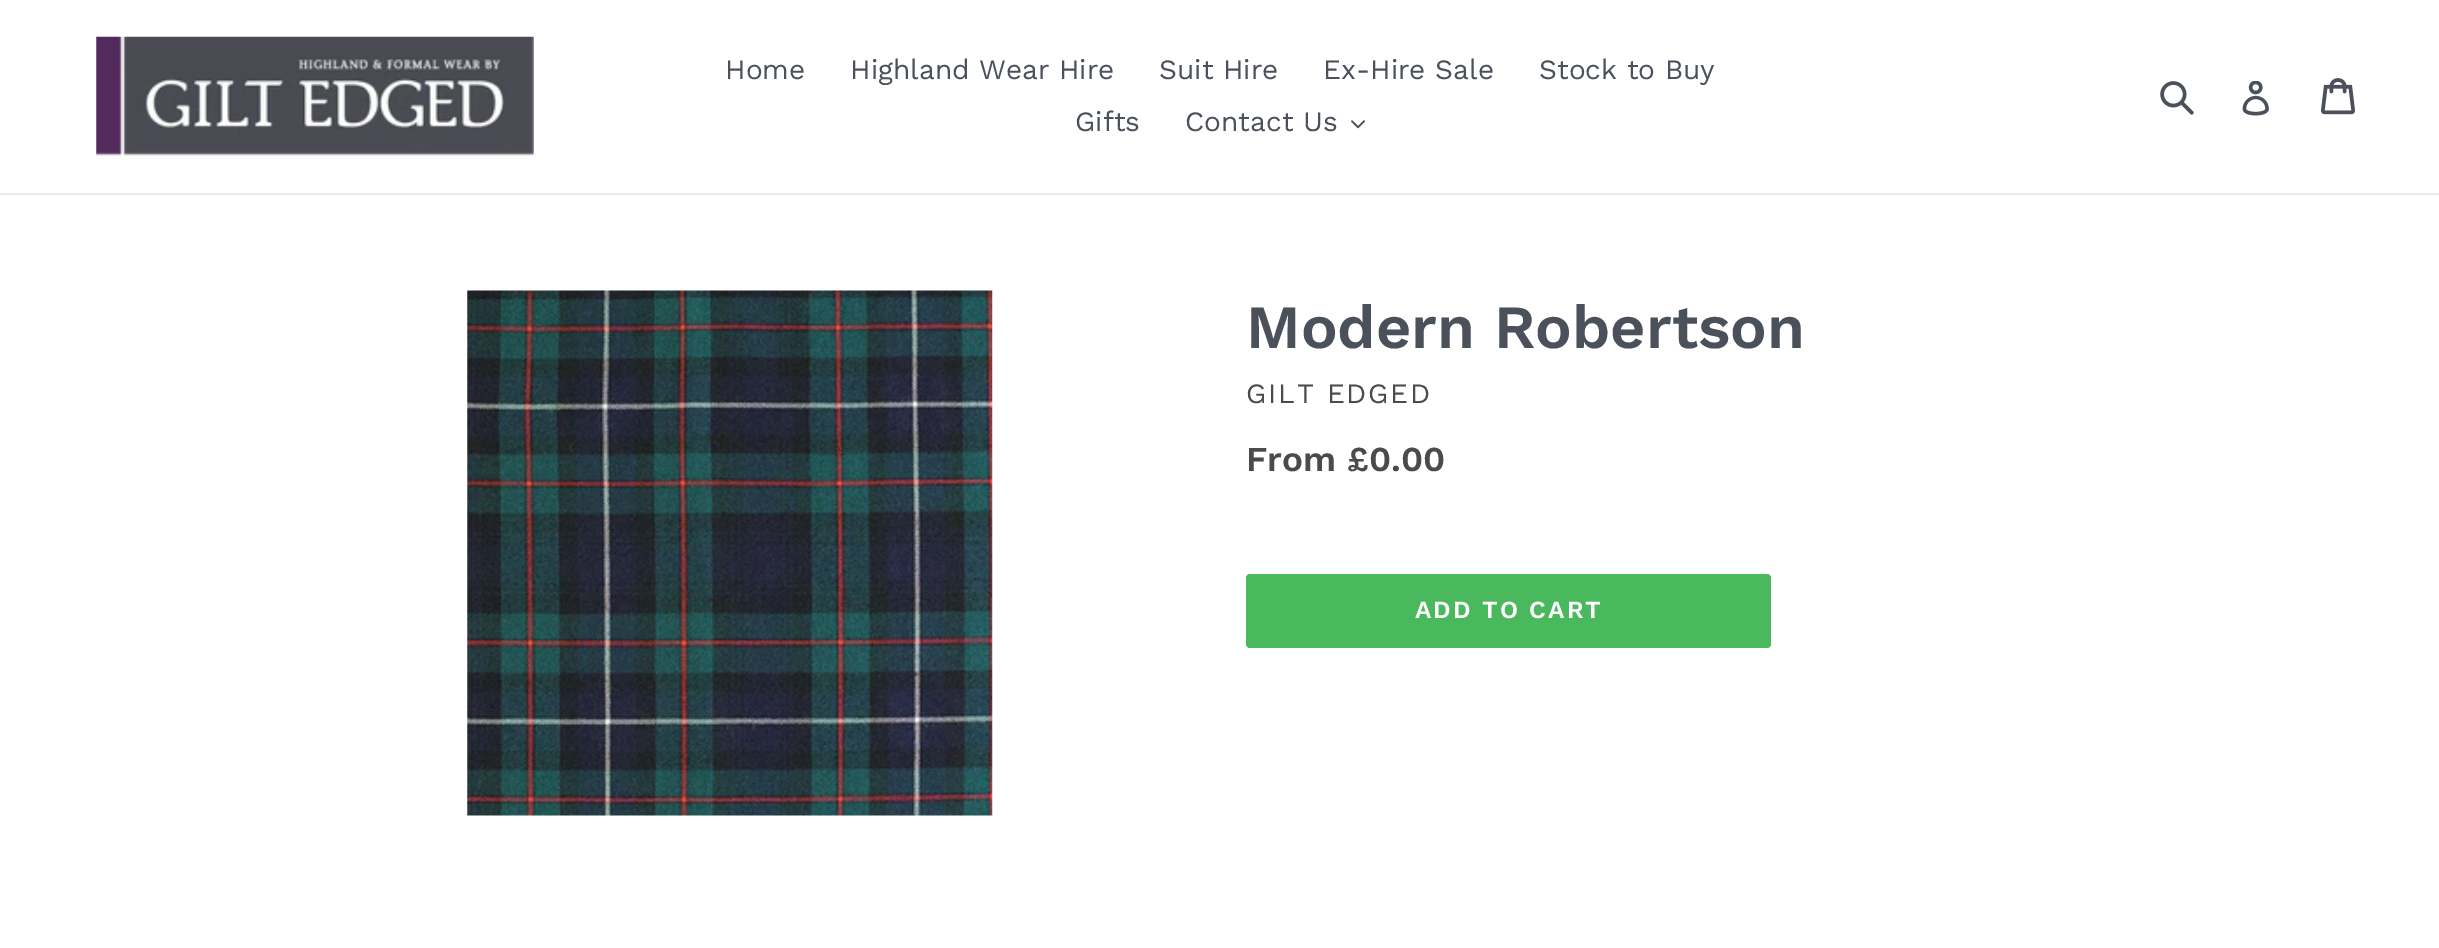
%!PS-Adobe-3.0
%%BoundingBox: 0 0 2439 948
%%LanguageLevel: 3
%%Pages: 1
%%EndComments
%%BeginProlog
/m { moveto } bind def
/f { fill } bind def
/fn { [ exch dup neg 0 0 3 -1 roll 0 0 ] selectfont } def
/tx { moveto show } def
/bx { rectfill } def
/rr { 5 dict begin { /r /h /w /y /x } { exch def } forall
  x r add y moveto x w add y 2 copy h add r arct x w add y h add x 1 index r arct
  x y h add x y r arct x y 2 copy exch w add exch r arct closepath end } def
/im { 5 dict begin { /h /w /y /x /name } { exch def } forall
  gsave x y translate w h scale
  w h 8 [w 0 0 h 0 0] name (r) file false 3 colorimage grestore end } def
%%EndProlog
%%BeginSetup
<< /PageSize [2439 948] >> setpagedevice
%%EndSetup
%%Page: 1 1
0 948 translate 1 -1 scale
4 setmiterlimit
1 setgray
0 0 2439 948 bx
0.91 0.914 0.922 setrgbcolor
0 193 2439 2 bx
(image0.raw) 96 36 438 120 im
/WorkSans-Regular 28 fn
0.294 0.318 0.357 setrgbcolor
(Home) 725 79 tx
(Highland Wear Hire) 850 79 tx
(Suit Hire) 1159 79 tx
(Ex-Hire Sale) 1323 79 tx
(Stock to Buy) 1539 79 tx
(Gifts) 1075 131 tx
(Contact Us) 1185 131 tx
(image1.raw) 1351 120 14 9 im
(image2.raw) 2160 81 34 34 im
(image3.raw) 2242 81 27 35 im
(image4.raw) 2321 78 34 37 im
(image5.raw) 467 290 526 526 im
/WorkSans-SemiBold 61.25 fn
(Modern Robertson) 1246 348 tx
/WorkSans-Regular 28 fn
0.286 0.294 0.298 setrgbcolor
1246 403 m 1.75 0 (GILT EDGED) ashow
/WorkSans-SemiBold 35 fn
(From £0.00) 1246 471 tx
0.29 0.725 0.369 setrgbcolor
1246 574 525 74 4 rr f
/WorkSans-SemiBold 24.5 fn
1 setgray
1415 618 m 2 0 (ADD TO CART) ashow
showpage
%%EOF
